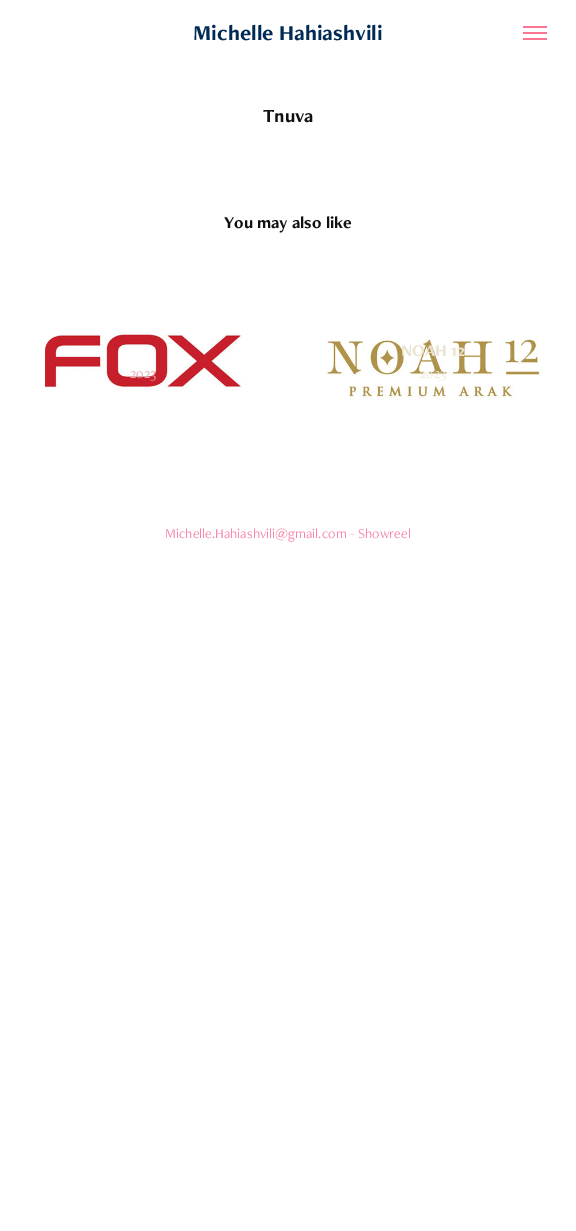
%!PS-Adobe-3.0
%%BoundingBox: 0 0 576 1231
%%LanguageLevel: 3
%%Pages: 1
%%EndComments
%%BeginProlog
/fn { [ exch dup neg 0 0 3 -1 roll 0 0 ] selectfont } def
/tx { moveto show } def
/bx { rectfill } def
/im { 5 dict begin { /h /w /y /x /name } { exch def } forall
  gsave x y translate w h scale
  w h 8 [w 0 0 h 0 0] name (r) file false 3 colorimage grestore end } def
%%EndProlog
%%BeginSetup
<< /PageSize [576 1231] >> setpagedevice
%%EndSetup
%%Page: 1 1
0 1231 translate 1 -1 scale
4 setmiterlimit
1 setgray
0 0 576 1231 bx
/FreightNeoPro-Bold 22 fn
0.004 0.169 0.333 setrgbcolor
(Michelle Hahiashvili) 193 40 tx
0.973 0.459 0.58 setrgbcolor
523 26 24 2 bx
523 32 24 2 bx
523 38 24 2 bx
/FreightNeoPro-Bold 19 fn
0.067 setgray
(Tnuva) 263 122 tx
/FreightNeoPro-Bold 17 fn
(You may also like) 224 228 tx
(image0.raw) 44 331 199 59 im
/FreightNeoPro-Regular 14 fn
0.906 0.659 0.678 setrgbcolor
(2023) 130 378 tx
(image1.raw) 326 339 216 61 im
/FreightNeoPro-Bold 17 fn
0.918 0.89 0.82 setrgbcolor
(NOAH 12) 401 356 tx
/FreightNeoPro-Regular 14 fn
0.937 0.918 0.863 setrgbcolor
(2023) 420 378 tx
0.976 0.522 0.651 setrgbcolor
(Michelle.Hahiashvili@gmail.com - Showreel) 165 538 tx
showpage
%%EOF
